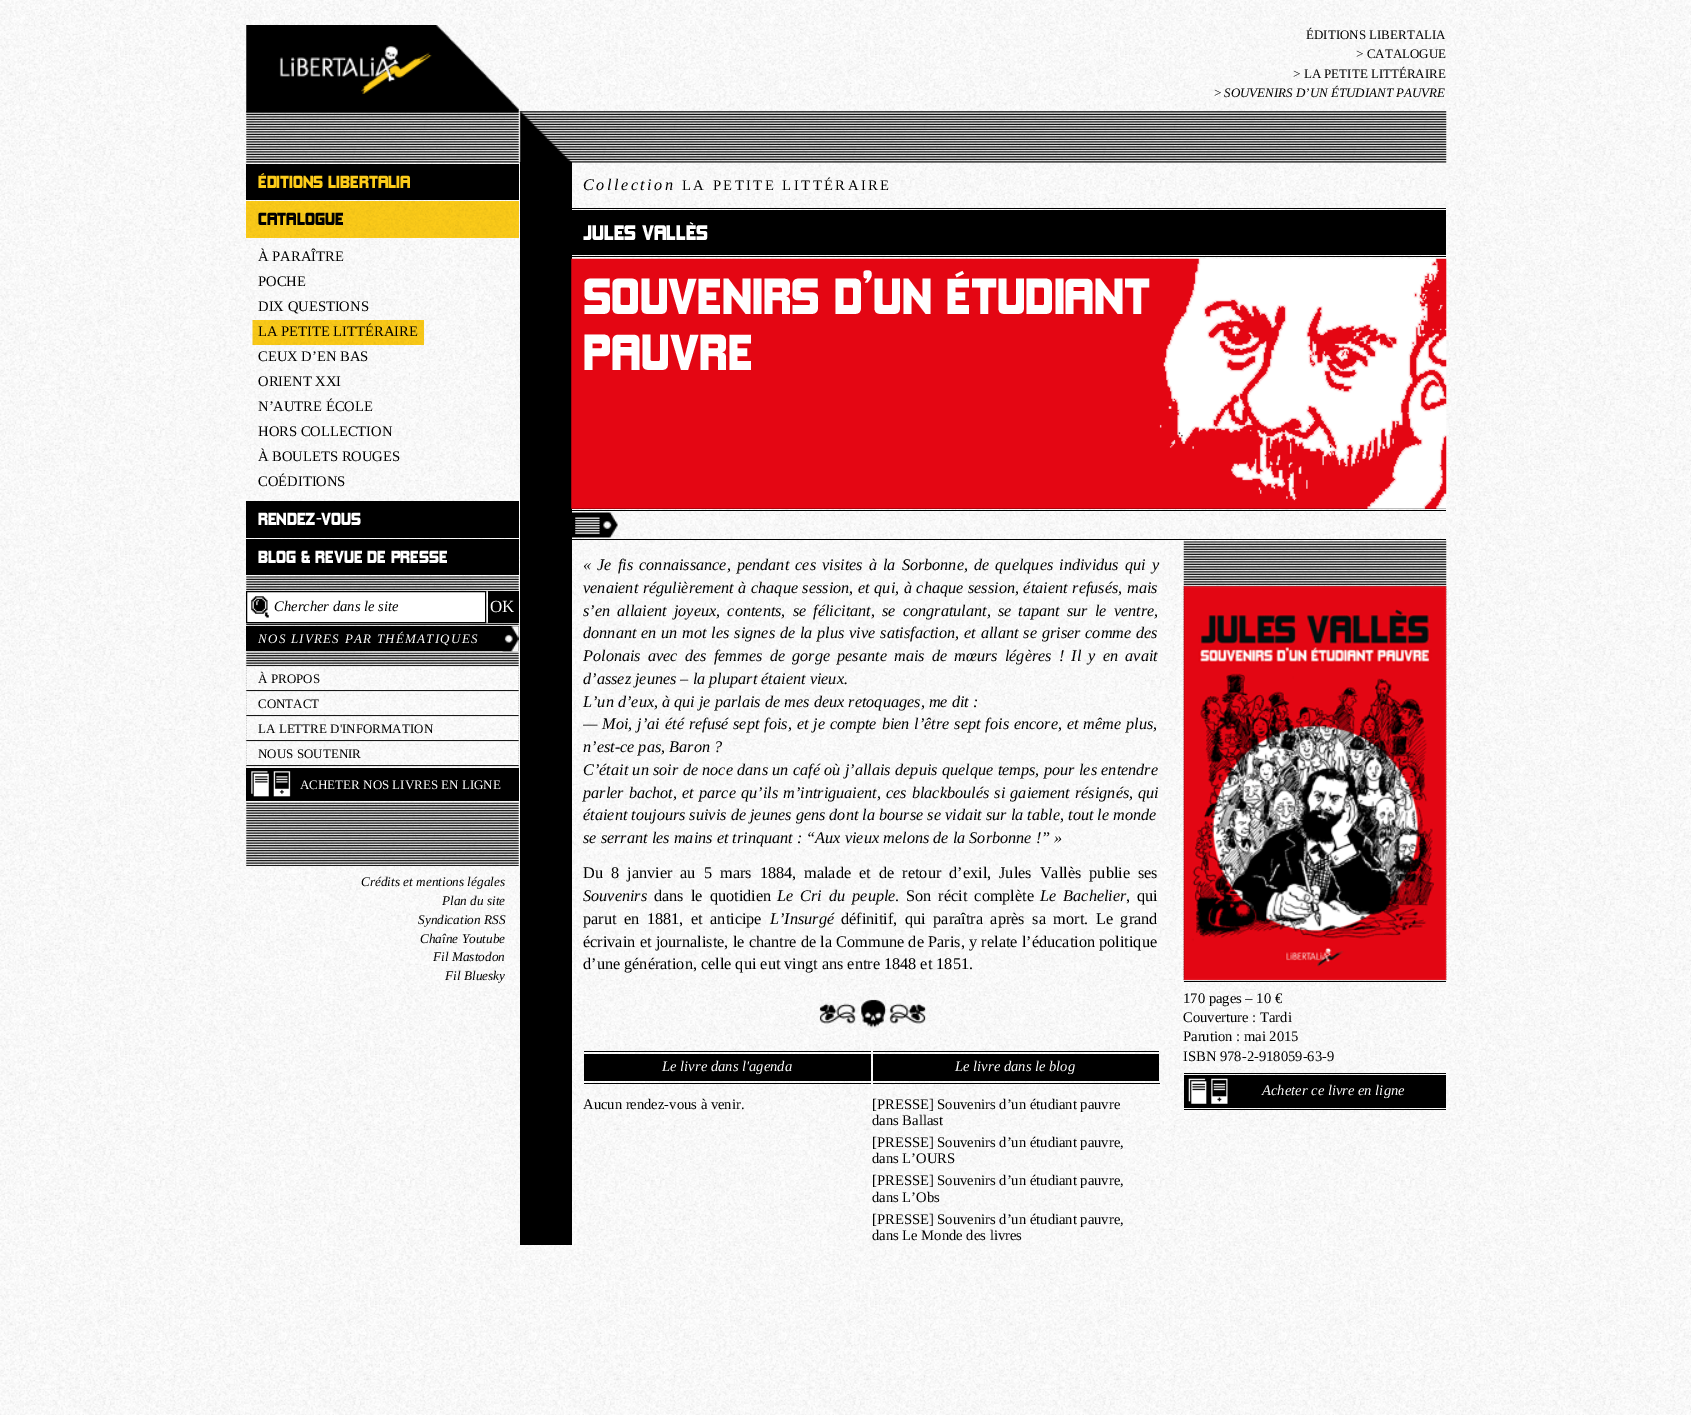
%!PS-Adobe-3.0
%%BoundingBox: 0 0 1691 1415
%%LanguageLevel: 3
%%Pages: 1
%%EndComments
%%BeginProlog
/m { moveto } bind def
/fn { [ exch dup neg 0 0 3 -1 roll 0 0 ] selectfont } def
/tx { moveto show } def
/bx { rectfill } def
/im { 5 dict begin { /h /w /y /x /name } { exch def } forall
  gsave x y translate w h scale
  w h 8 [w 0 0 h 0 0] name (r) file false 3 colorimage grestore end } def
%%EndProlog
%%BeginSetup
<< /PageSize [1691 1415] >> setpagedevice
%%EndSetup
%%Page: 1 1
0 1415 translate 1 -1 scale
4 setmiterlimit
1 setgray
0 0 1691 1415 bx
(image0.raw) 0 0 1691 1415 im
(image1.raw) 246 111 1201 52 im
(image2.raw) 246 25 273 88 im
(image3.raw) 279 46 153 48 im
(image4.raw) 518 111 54 52 im
/LiberationSerif-Regular 13 fn
0 setgray
(ÉDITIONS LIBERTALIA) 1306 39 tx
(> CATALOGUE) 1356 58 tx
(> LA PETITE LITTÉRAIRE) 1293 78 tx
(>) 1214 97 tx
/LiberationSerif-Italic 13 fn
(SOUVENIRS D’UN ÉTUDIANT PAUVRE) 1224 97 tx
246 164 273 36 bx
/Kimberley-Regular 16.25 fn
0.992 0.8 0.098 setrgbcolor
(ÉDITIONS LIBERTALIA) 258 188 tx
246 201 273 37 bx
(image5.raw) 246 201 273 37 im
0 setgray
(CATALOGUE) 258 225 tx
(image6.raw) 246 239 273 262 im
/LiberationSerif-Regular 14.6 fn
(À PARAÎTRE) 258 261 tx
(POCHE) 258 286 tx
(DIX QUESTIONS) 258 311 tx
(image7.raw) 252 320 172 25 im
(LA PETITE LITTÉRAIRE) 258 336 tx
(CEUX D’EN BAS) 258 361 tx
(ORIENT XXI) 258 386 tx
(N’AUTRE ÉCOLE) 258 411 tx
(HORS COLLECTION) 258 436 tx
(À BOULETS ROUGES) 258 461 tx
(COÉDITIONS) 258 486 tx
246 501 273 37 bx
/Kimberley-Regular 16.25 fn
1 setgray
(RENDEZ-VOUS) 258 525 tx
0 setgray
246 539 273 36 bx
1 setgray
(BLOG & REVUE DE PRESSE) 258 563 tx
(image8.raw) 246 576 273 76 im
(image9.raw) 486 591 2 32 im
247 592 238 30 bx
(image10.raw) 251 596 18 22 im
0 setgray
246.5 591.5 239 31 rectstroke
/LiberationSerif-Italic 14.6 fn
(Chercher dans le site) 274 611 tx
488 591 31 32 bx
/LiberationSerif-Regular 17 fn
1 setgray
(OK) 490 612 tx
0 setgray
246 626 273 25 bx
(image11.raw) 502 626 17 26 im
/LiberationSerif-Italic 13 fn
1 setgray
258 643 m 1.25 0 (NOS LIVRES PAR THÉMATIQUES) ashow
(image12.raw) 246 652 273 215 im
(image13.raw) 246 666 273 24 im
/LiberationSerif-Regular 13 fn
0 setgray
(À PROPOS) 258 683 tx
(image14.raw) 246 691 273 24 im
(CONTACT) 258 708 tx
(image15.raw) 246 716 273 24 im
(LA LETTRE D'INFORMATION) 258 733 tx
(image16.raw) 246 741 273 24 im
(NOUS SOUTENIR) 258 758 tx
(image17.raw) 246 766 273 37 im
246 768 273 33 bx
(image18.raw) 251 771 40 26 im
1 setgray
(ACHETER NOS LIVRES EN LIGNE) 300 789 tx
(image19.raw) 246 866 273 119 im
/LiberationSerif-Italic 13.25 fn
0 setgray
(Crédits et mentions légales) 361 886 tx
(Plan du site) 442 905 tx
(Syndication RSS) 418 924 tx
(Chaîne Youtube) 420 943 tx
(Fil Mastodon) 433 961 tx
(Fil Bluesky) 445 980 tx
520 162 52 1083 bx
571 208 875 1 bx
/LiberationSerif-Italic 16.25 fn
583 190 m 2.5 0 (Collection) ashow
/LiberationSerif-Regular 14.6 fn
682 190 m 2.5 0 (LA PETITE LITTÉRAIRE) ashow
572 210 874 45 bx
/Kimberley-Regular 19.5 fn
1 setgray
(JULES VALLÈS) 583 240 tx
0 setgray
572 259 874 250 bx
(image20.raw) 571 258 876 251 im
571 256 875 1 bx
/Kimberley-Regular 46.75 fn
1 setgray
(SOUVENIRS D’UN ÉTUDIANT) 583 314 tx
(PAUVRE) 583 370 tx
(image21.raw) 572 512 46 26 im
0 setgray
571 510 875 1 bx
571 539 875 1 bx
/LiberationSerif-Italic 16.25 fn
583 570 m 2 0 32 (« Je fis connaissance, pendant ces visites à la Sorbonne, de quelques individus qui y) widthshow
583 593 m 0.5 0 32 (venaient régulièrement à chaque session, et qui, à chaque session, étaient refusés, mais) widthshow
583 616 m 3 0 32 (s’en allaient joyeux, contents, se félicitant, se congratulant, se tapant sur le ventre,) widthshow
583 638 m 0.75 0 32 (donnant en un mot les signes de la plus vive satisfaction, et allant se griser comme des) widthshow
583 661 m 3.1 0 32 (Polonais avec des femmes de gorge pesante mais de mœurs légères ! Il y en avait) widthshow
(d’assez jeunes – la plupart étaient vieux.) 583 684 tx
(L’un d’eux, à qui je parlais de mes deux retoquages, me dit :) 583 707 tx
583 729 m 0.8 0 32 (— Moi, j’ai été refusé sept fois, et je compte bien l’être sept fois encore, et même plus,) widthshow
(n’est-ce pas, Baron ?) 583 752 tx
583 775 m 0.25 0 32 (C’était un soir de noce dans un café où j’allais depuis quelque temps, pour les entendre) widthshow
583 798 m 1 0 32 (parler bachot, et parce qu’ils m’intriguaient, ces blackboulés si gaiement résignés, qui) widthshow
(étaient toujours suivis de jeunes gens dont la bourse se vidait sur la table, tout le monde) 583 820 tx
(se serrant les mains et trinquant : “Aux vieux melons de la Sorbonne !” ») 583 843 tx
/LiberationSerif-Regular 16.25 fn
583 878 m 4 0 32 (Du 8 janvier au 5 mars 1884, malade et de retour d’exil, Jules Vallès publie ses) widthshow
/LiberationSerif-Italic 16.25 fn
(Souvenirs) 583 901 tx
/LiberationSerif-Regular 16.25 fn
654 901 m 3 0 32 (dans le quotidien) widthshow
/LiberationSerif-Italic 16.25 fn
777 901 m 3 0 32 (Le Cri du peuple) widthshow
/LiberationSerif-Regular 16.25 fn
895 901 m 3 0 32 (. Son récit complète) widthshow
/LiberationSerif-Italic 16.25 fn
1040 901 m 3 0 32 (Le Bachelier) widthshow
/LiberationSerif-Regular 16.25 fn
1126 901 m 3 0 32 (, qui) widthshow
583 924 m 3.5 0 32 (parut en 1881, et anticipe) widthshow
/LiberationSerif-Italic 16.25 fn
(L’Insurgé) 770 924 tx
/LiberationSerif-Regular 16.25 fn
841 924 m 3.5 0 32 (définitif, qui paraîtra après sa mort. Le grand) widthshow
583 947 m 0.25 0 32 (écrivain et journaliste, le chantre de la Commune de Paris, y relate l’éducation politique) widthshow
(d’une génération, celle qui eut vingt ans entre 1848 et 1851.) 583 969 tx
(image22.raw) 819 999 107 29 im
584 1051 287 1 bx
584 1054 287 27 bx
/LiberationSerif-Italic 14.6 fn
1 setgray
(Le livre dans l'agenda) 662 1071 tx
0 setgray
584 1083 287 1 bx
/LiberationSerif-Regular 14.6 fn
(Aucun rendez-vous à venir.) 583 1109 tx
873 1051 286 1 bx
873 1054 286 27 bx
/LiberationSerif-Italic 14.6 fn
1 setgray
(Le livre dans le blog) 955 1071 tx
0 setgray
873 1083 287 1 bx
/LiberationSerif-Regular 14.6 fn
([PRESSE] Souvenirs d’un étudiant pauvre) 872 1109 tx
(dans Ballast) 872 1125 tx
([PRESSE] Souvenirs d’un étudiant pauvre,) 872 1147 tx
(dans L’OURS) 872 1163 tx
([PRESSE] Souvenirs d’un étudiant pauvre,) 872 1185 tx
(dans L’Obs) 872 1202 tx
([PRESSE] Souvenirs d’un étudiant pauvre,) 872 1224 tx
(dans Le Monde des livres) 872 1240 tx
1184 1109 262 1 bx
1184 981 262 1 bx
(image23.raw) 1183 541 264 441 im
(image24.raw) 1183 586 264 394 im
(170 pages – 10 €) 1183 1003 tx
(Couverture : Tardi) 1183 1022 tx
(Parution : mai 2015) 1183 1041 tx
(ISBN 978-2-918059-63-9) 1183 1061 tx
1184 1073 262 1 bx
1184 1075 262 33 bx
(image25.raw) 1188 1078 40 26 im
/LiberationSerif-Italic 14.6 fn
1 setgray
(Acheter ce livre en ligne) 1262 1095 tx
showpage
%%EOF
